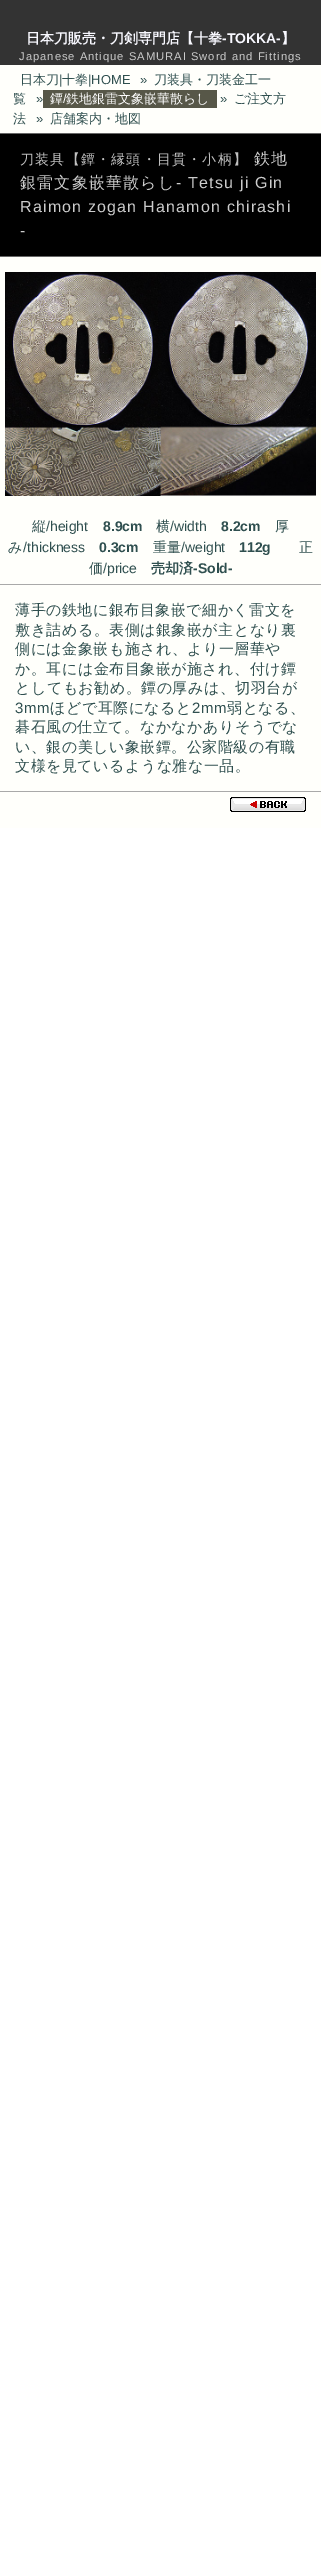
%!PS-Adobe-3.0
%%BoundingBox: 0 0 321 2549
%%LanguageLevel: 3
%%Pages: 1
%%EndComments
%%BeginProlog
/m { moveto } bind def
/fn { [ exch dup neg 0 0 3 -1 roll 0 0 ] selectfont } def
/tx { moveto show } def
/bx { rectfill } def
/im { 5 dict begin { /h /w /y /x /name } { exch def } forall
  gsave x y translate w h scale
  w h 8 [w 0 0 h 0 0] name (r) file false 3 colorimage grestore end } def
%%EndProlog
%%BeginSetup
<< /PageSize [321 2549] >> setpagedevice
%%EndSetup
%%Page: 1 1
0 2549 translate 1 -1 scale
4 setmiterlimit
1 setgray
0 0 321 2549 bx
0.2 setgray
0 0 321 65 bx
/WenQuanYiZenHei-Bold 14 fn
0.973 0.973 1 setrgbcolor
(日本刀販売・刀剣専門店【十拳) 26 43 tx
/LiberationSans-Bold 14 fn
(-TOKKA-) 222 43 tx
/WenQuanYiZenHei-Bold 14 fn
(】) 281 43 tx
/LiberationSans-Regular 11.2 fn
0.8 setgray
19 60 m 1 0 (Japanese Antique SAMURAI Sword and Fittings) ashow
1 1 0.984 setrgbcolor
0 65 321 763 bx
/WenQuanYiZenHei-Medium 13 fn
0.184 0.31 0.31 setrgbcolor
(日本刀) 20 84 tx
/LiberationSans-Regular 13 fn
(|) 59 84 tx
/WenQuanYiZenHei-Medium 13 fn
(十拳) 62 84 tx
/LiberationSans-Regular 13 fn
(|HOME) 88 84 tx
(») 140 84 tx
/WenQuanYiZenHei-Medium 13 fn
(刀装具・刀装金工一) 154 84 tx
(覧) 13 103 tx
/LiberationSans-Regular 13 fn
(») 36 103 tx
0.341 0.341 0.282 setrgbcolor
43 90 174 18 bx
/WenQuanYiZenHei-Medium 13 fn
1 setgray
(鐔) 50 103 tx
/LiberationSans-Regular 13 fn
(/) 63 103 tx
/WenQuanYiZenHei-Medium 13 fn
(鉄地銀雷文象嵌華散らし) 66 103 tx
/LiberationSans-Regular 13 fn
0.184 0.31 0.31 setrgbcolor
(») 220 103 tx
/WenQuanYiZenHei-Medium 13 fn
(ご注文方) 234 103 tx
(法) 13 123 tx
/LiberationSans-Regular 13 fn
(») 36 123 tx
/WenQuanYiZenHei-Medium 13 fn
(店舗案内・地図) 50 123 tx
0 setgray
0 134 321 122 bx
0.4 setgray
0 133 321 1 bx
0 256 321 1 bx
/WenQuanYiZenHei-Medium 14 fn
0.753 setgray
20 164 m 1.2 0 (刀装具【鐔・縁頭・目貫・小柄】) ashow
/WenQuanYiZenHei-Medium 16 fn
0.8 setgray
254 164 m 1.2 0 (鉄地) ashow
20 188 m 1.2 0 (銀雷文象嵌華散らし) ashow
/LiberationSans-Regular 16 fn
176 188 m 1.2 0 (- Tetsu ji Gin) ashow
20 212 m 1.2 0 (Raimon zogan Hanamon chirashi) ashow
20 236 m 1.2 0 (-) ashow
(image0.raw) 5 272 311 224 im
/WenQuanYiZenHei-Medium 14 fn
0.184 0.31 0.31 setrgbcolor
(縦) 32 531 tx
/LiberationSans-Regular 14 fn
(/height) 46 531 tx
/LiberationSans-Bold 14 fn
(8.9cm) 103 531 tx
/WenQuanYiZenHei-Medium 14 fn
(横) 156 531 tx
/LiberationSans-Regular 14 fn
(/width) 170 531 tx
/LiberationSans-Bold 14 fn
(8.2cm) 221 531 tx
/WenQuanYiZenHei-Medium 14 fn
(厚) 275 531 tx
(み) 8 552 tx
/LiberationSans-Regular 14 fn
(/thickness) 23 552 tx
/LiberationSans-Bold 14 fn
(0.3cm) 99 552 tx
/WenQuanYiZenHei-Medium 14 fn
(重量) 153 552 tx
/LiberationSans-Regular 14 fn
(/weight) 181 552 tx
/LiberationSans-Bold 14 fn
(112g) 239 552 tx
/WenQuanYiZenHei-Medium 14 fn
(正) 299 552 tx
(価) 89 573 tx
/LiberationSans-Regular 14 fn
(/price) 103 573 tx
/WenQuanYiZenHei-Bold 14 fn
(売却済) 151 573 tx
/LiberationSans-Bold 14 fn
(-Sold-) 193 573 tx
0.663 setgray
0 584 321 1 bx
0 791 321 1 bx
/WenQuanYiZenHei-Medium 15 fn
0.184 0.31 0.31 setrgbcolor
15 615 m 0.5 0 (薄手の鉄地に銀布目象嵌で細かく雷文を) ashow
15 635 m 0.5 0 (敷き詰める。表側は銀象嵌が主となり裏) ashow
15 654 m 0.5 0 (側には金象嵌も施され、より一層華や) ashow
15 674 m 0.5 0 (か。耳には金布目象嵌が施され、付け鐔) ashow
15 693 m 0.5 0 (としてもお勧め。鐔の厚みは、切羽台が) ashow
/LiberationSans-Regular 15 fn
15 713 m 0.5 0 (3mm) ashow
/WenQuanYiZenHei-Medium 15 fn
50 713 m 0.5 0 (ほどで耳際になると) ashow
/LiberationSans-Regular 15 fn
192 713 m 0.5 0 (2mm) ashow
/WenQuanYiZenHei-Medium 15 fn
227 713 m 0.5 0 (弱となる、) ashow
15 732 m 0.5 0 (碁石風の仕立て。なかなかありそうでな) ashow
15 752 m 0.5 0 (い、銀の美しい象嵌鐔。公家階級の有職) ashow
15 771 m 0.5 0 (文様を見ているような雅な一品。) ashow
(image1.raw) 230 797 76 15 im
showpage
%%EOF
